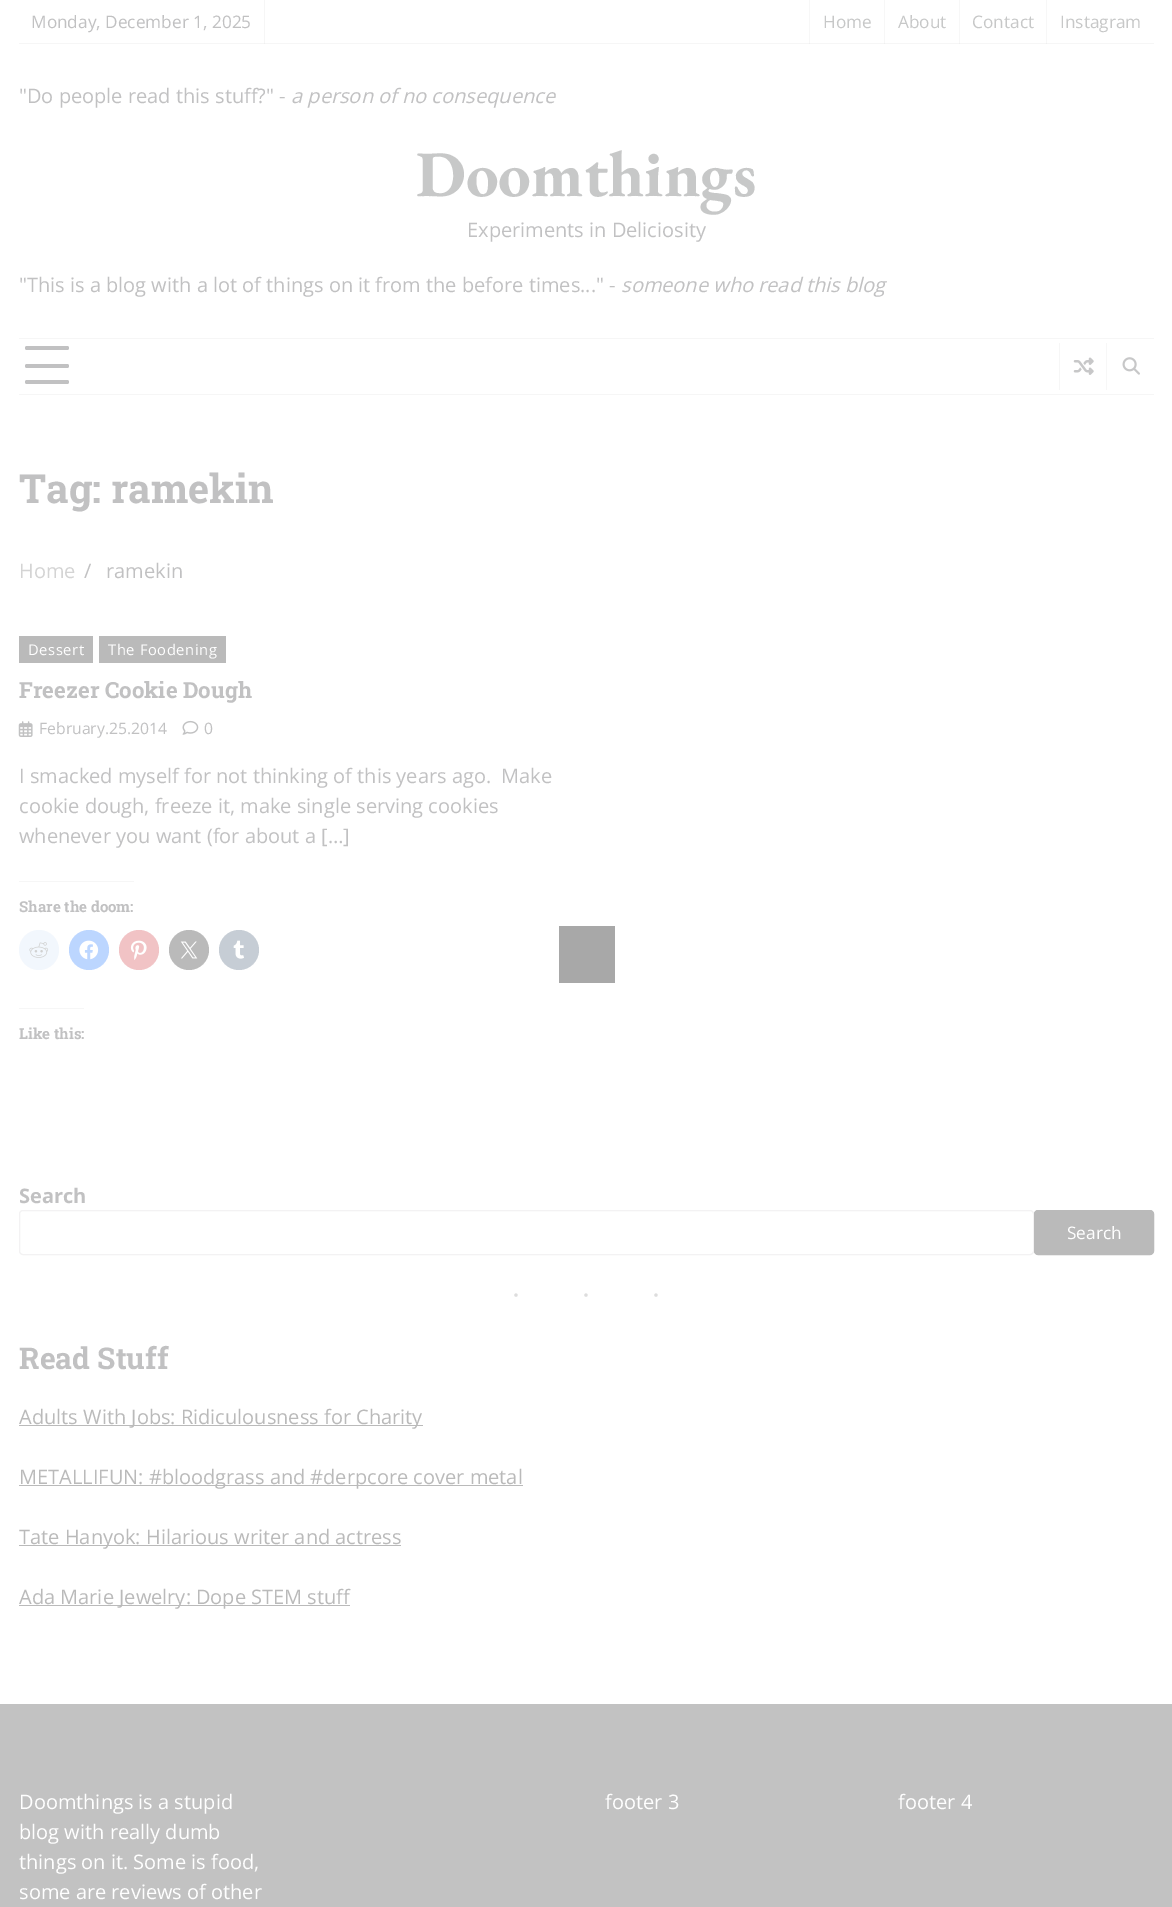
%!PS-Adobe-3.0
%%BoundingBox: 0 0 1172 1907
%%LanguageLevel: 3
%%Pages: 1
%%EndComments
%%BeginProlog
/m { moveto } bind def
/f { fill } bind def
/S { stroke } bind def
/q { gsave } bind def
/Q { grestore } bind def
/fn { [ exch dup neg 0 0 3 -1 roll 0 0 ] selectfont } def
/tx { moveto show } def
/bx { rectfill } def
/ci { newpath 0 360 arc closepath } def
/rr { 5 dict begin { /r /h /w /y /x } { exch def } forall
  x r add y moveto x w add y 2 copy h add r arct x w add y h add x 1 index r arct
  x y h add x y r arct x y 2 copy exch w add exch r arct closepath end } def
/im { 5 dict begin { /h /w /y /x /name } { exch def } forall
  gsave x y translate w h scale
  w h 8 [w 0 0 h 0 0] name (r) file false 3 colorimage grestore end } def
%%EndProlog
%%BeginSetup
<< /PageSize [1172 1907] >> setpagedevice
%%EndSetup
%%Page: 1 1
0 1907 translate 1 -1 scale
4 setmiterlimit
1 setgray
0 0 1172 1907 bx
0.965 setgray
19 43 1135 1 bx
264 0 1 44 bx
0.937 setgray
264 43 1 1 bx
/OpenSans-Regular 17.25 fn
0.757 0.757 0.761 setrgbcolor
(Monday, December 1, 2025) 31 28 tx
0.969 setgray
809 0 1 44 bx
0.937 setgray
809 43 1 1 bx
0.78 0.784 0.784 setrgbcolor
(Home) 823 28 tx
0.969 setgray
884 0 1 44 bx
0.937 setgray
884 43 1 1 bx
0.78 0.784 0.784 setrgbcolor
(About) 898 28 tx
0.969 setgray
959 0 1 44 bx
0.937 setgray
959 43 1 1 bx
0.78 0.784 0.784 setrgbcolor
(Contact) 972 28 tx
0.969 setgray
1046 0 1 44 bx
0.937 setgray
1046 43 1 1 bx
0.78 0.784 0.784 setrgbcolor
(Instagram) 1060 28 tx
/OpenSans-Regular 20 fn
0.757 0.757 0.761 setrgbcolor
("Do people read this stuff?" -) 19 103 tx
/OpenSans-Italic 20 fn
(a person of no consequence) 291 103 tx
/EBGaramond-Bold 65 fn
0.78 0.784 0.784 setrgbcolor
(Doomthings) 416 196 tx
/OpenSans-Regular 20 fn
0.757 0.757 0.761 setrgbcolor
(Experiments in Deliciosity) 467 237 tx
("This is a blog with a lot of things on it from the before times..." -) 19 292 tx
/OpenSans-Italic 20 fn
(someone who read this blog) 621 292 tx
0.965 setgray
19 338 1135 1 bx
0.757 0.757 0.761 setrgbcolor
25 346 44 4 2 rr f
25 364 44 4 2 rr f
25 380 44 4 2 rr f
0.965 setgray
1059 343 1 47 bx
(image0.raw) 1073 357 21 18 im
0.969 setgray
1106 343 1 47 bx
(image1.raw) 1122 357 18 18 im
0.965 setgray
19 394 1135 1 bx
/RobotoSlab-Bold 40 fn
0.757 0.757 0.761 setrgbcolor
(Tag: ramekin) 19 503 tx
/OpenSans-Regular 20 fn
0.831 setgray
(Home) 19 578 tx
0.757 0.757 0.761 setrgbcolor
(/) 84 578 tx
(ramekin) 106 578 tx
0.729 setgray
19 636 74 27 bx
/OpenSans-Regular 14.75 fn
1 setgray
28 655 m 0.6 0 (Dessert) ashow
0.729 setgray
99 636 127 27 bx
1 setgray
108 655 m 0.6 0 (The Foodening) ashow
/RobotoSlab-Bold 22.25 fn
0.757 0.757 0.761 setrgbcolor
(Freezer Cookie Dough) 19 698 tx
(image2.raw) 18 721 15 16 im
/OpenSans-Regular 15.75 fn
(February.25.2014) 39 734 tx
(image3.raw) 182 720 17 15 im
(0) 204 734 tx
/OpenSans-Regular 20 fn
(I smacked myself for not thinking of this years ago.  Make) 19 783 tx
(cookie dough, freeze it, make single serving cookies) 19 813 tx
(whenever you want \(for about a […]) 19 843 tx
0.965 setgray
19 881 115 1 bx
/RobotoSlab-Bold 15 fn
0.757 0.757 0.761 setrgbcolor
(Share the doom:) 19 912 tx
0.949 0.969 0.992 setrgbcolor
39 950 20 ci f
(image4.raw) 29 942 20 16 im
0.737 0.839 1 setrgbcolor
89 950 20 ci f
(image5.raw) 79 940 20 20 im
0.945 0.765 0.773 setrgbcolor
139 950 20 ci f
(image6.raw) 130 940 17 20 im
0.729 setgray
189 950 20 ci f
(image7.raw) 180 941 18 18 im
0.776 0.804 0.835 setrgbcolor
239 950 20 ci f
(image8.raw) 233 940 11 19 im
0.965 setgray
19 1008 65 1 bx
0.757 0.757 0.761 setrgbcolor
(Like this:) 19 1039 tx
/OpenSans-Bold 20 fn
(Search) 19 1203 tx
0.953 0.949 0.953 setrgbcolor
19.5 1210.5 1014 44 3.5 rr S
0.729 setgray
1034.5 1210.5 119 44 3.5 rr q f Q
S
/OpenSans-Regular 17.25 fn
1 setgray
(Search) 1067 1239 tx
/LiberationSerif-Regular 30 fn
0.867 setgray
511 1305 m 60 0 (···) ashow
/RobotoSlab-Bold 30 fn
0.757 0.757 0.761 setrgbcolor
(Read Stuff) 19 1369 tx
0.729 setgray
19 1425 404 1 bx
/OpenSans-Regular 20 fn
(Adults With Jobs: Ridiculousness for Charity) 19 1424 tx
19 1485 504 1 bx
(METALLIFUN: #bloodgrass and #derpcore cover metal) 19 1484 tx
19 1545 382 1 bx
(Tate Hanyok: Hilarious writer and actress) 19 1544 tx
19 1605 331 1 bx
(Ada Marie Jewelry: Dope STEM stuff) 19 1604 tx
0.659 setgray
559 926 56 57 bx
0.761 setgray
0 1704 1172 203 bx
1 setgray
(Doomthings is a stupid) 19 1809 tx
(blog with really dumb) 19 1839 tx
(things on it. Some is food,) 19 1869 tx
(some are reviews of other) 19 1899 tx
(footer 3) 605 1809 tx
(footer 4) 898 1809 tx
showpage
%%EOF
